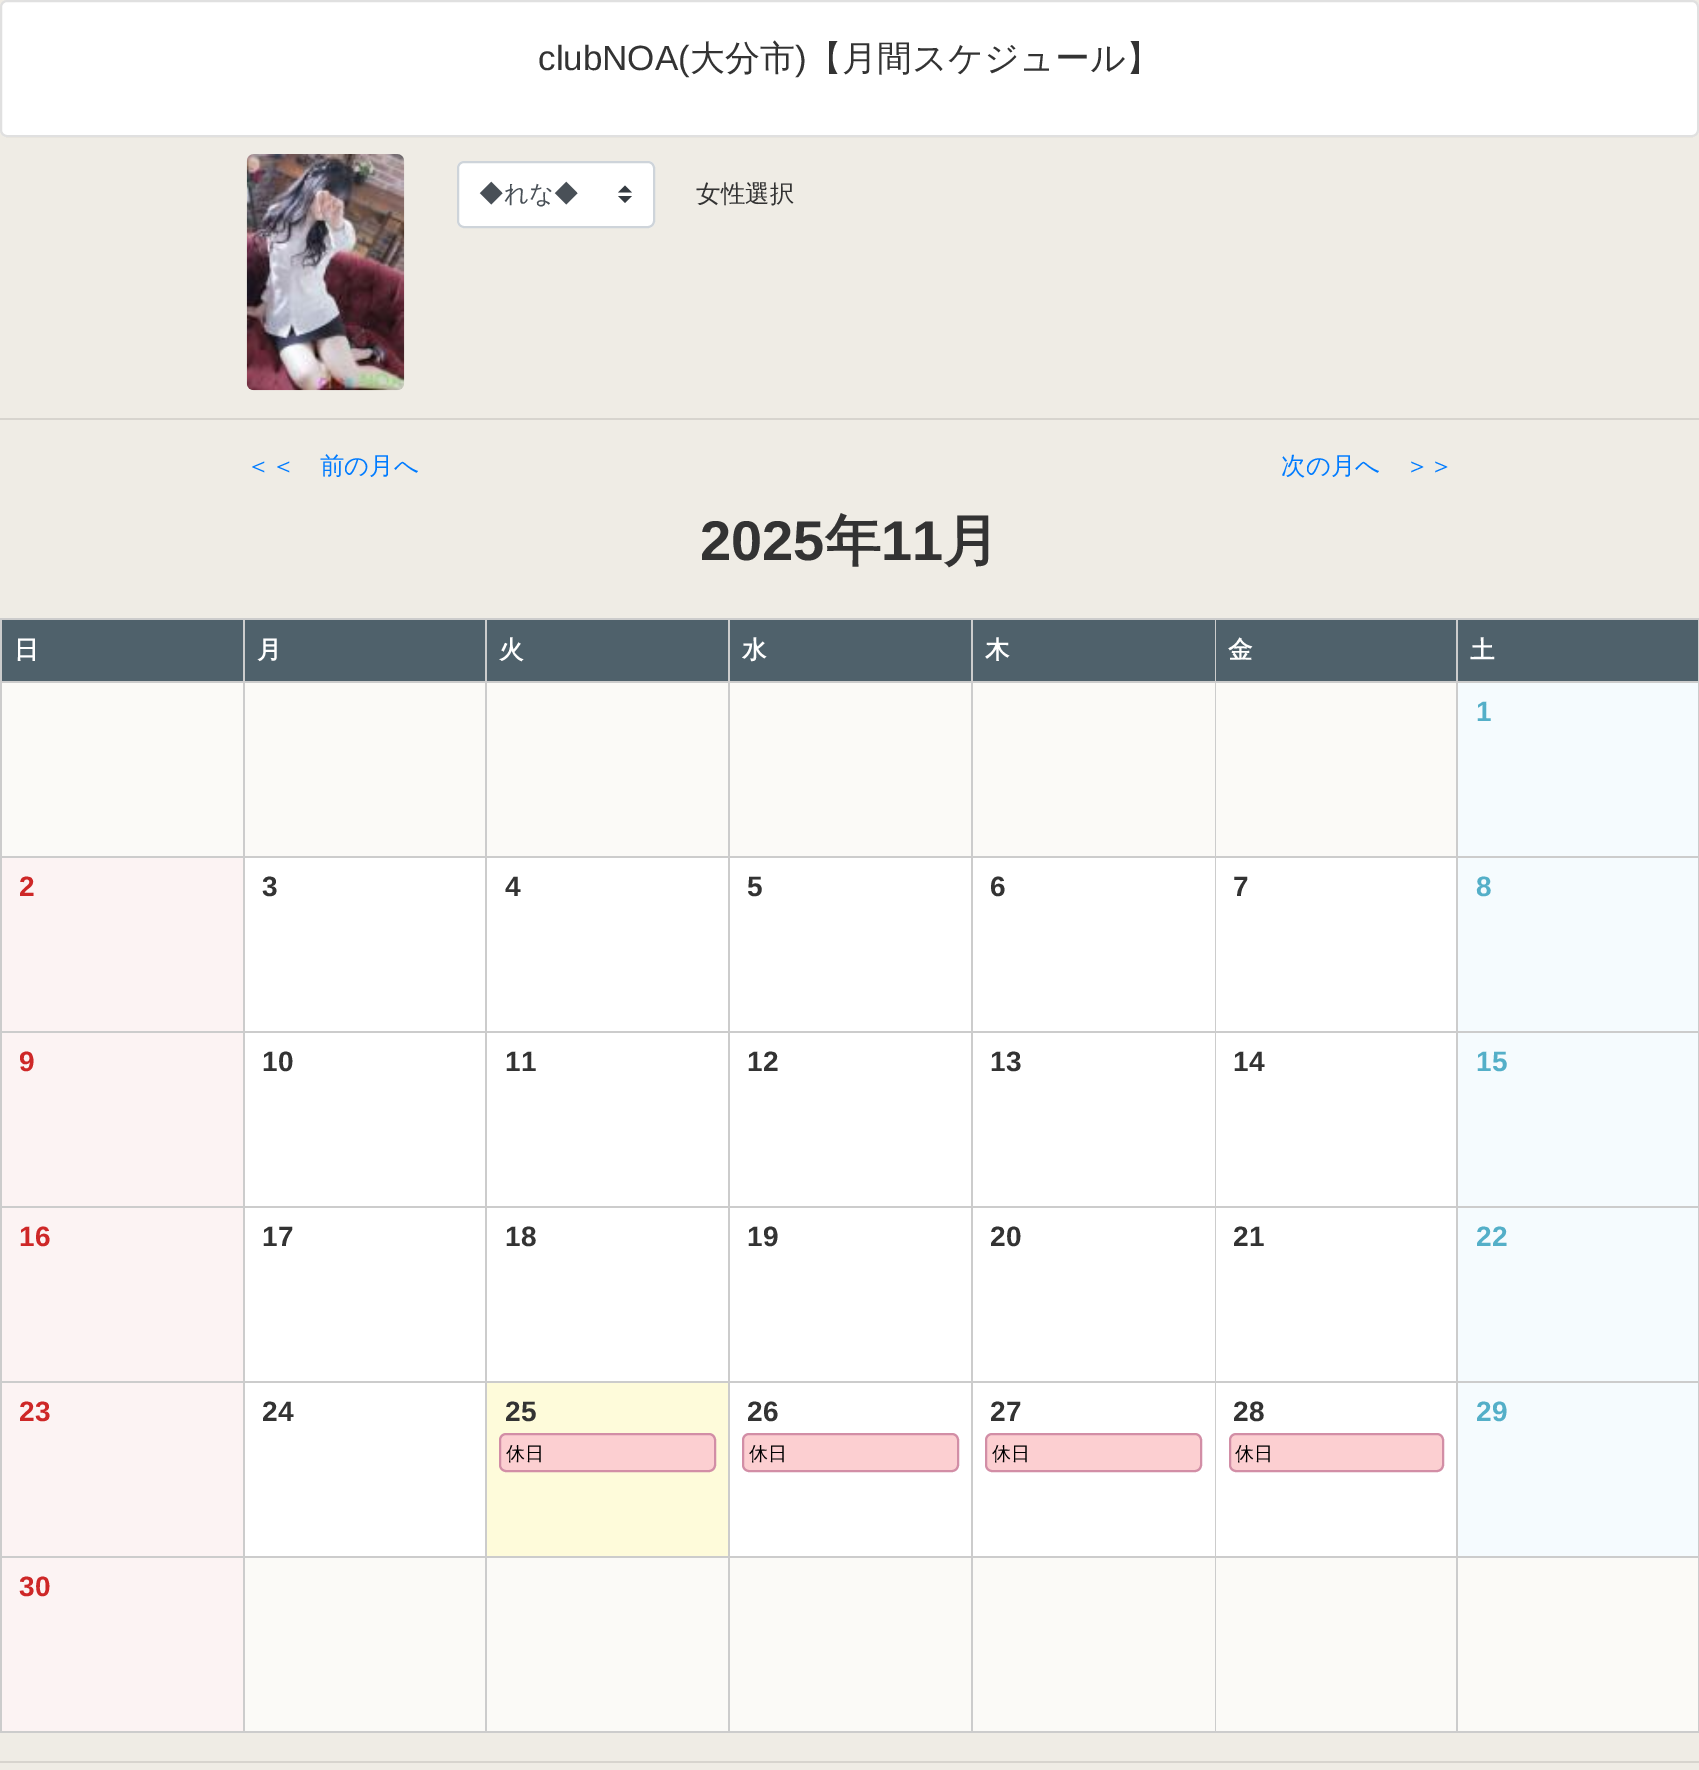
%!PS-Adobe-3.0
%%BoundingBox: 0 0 1699 1770
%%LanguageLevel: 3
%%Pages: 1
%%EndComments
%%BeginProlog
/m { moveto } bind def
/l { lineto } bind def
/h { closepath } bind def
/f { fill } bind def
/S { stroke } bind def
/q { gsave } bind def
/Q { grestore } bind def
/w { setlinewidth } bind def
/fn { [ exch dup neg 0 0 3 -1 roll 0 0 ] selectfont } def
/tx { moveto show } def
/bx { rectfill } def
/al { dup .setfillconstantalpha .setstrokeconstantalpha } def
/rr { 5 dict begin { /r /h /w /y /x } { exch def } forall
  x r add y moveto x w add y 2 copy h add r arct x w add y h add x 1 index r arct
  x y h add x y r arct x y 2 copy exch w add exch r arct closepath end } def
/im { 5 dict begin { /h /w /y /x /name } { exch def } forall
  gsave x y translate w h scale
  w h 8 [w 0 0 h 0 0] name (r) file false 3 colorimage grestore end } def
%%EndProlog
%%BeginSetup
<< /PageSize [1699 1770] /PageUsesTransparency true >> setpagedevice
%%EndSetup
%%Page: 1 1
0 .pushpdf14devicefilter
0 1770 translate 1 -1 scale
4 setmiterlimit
0.937 0.925 0.898 setrgbcolor
0 0 1699 1770 bx
1 setgray
0 0 1699 137 7 rr f
0.12 al
0 setgray
2 w
1 1 1697 135 6 rr S
/LiberationSans-Regular 35 fn
1 al
0.2 setgray
(clubNOA\() 538 70 tx
/WenQuanYiZenHei-Medium 35 fn
(大分市) 690 70 tx
/LiberationSans-Regular 35 fn
(\)) 795 70 tx
/WenQuanYiZenHei-Medium 35 fn
(【月間スケジュール】) 807 70 tx
(image0.raw) 246 154 159 237 im
1 setgray
457 161 198 67 7 rr f
0.204 0.227 0.251 setrgbcolor
625 185.5 m 618 192.5 l 632 192.5 l h 625 203 m 618 196 l 632 196 l h f
0.808 0.831 0.855 setrgbcolor
458 162 196 65 6 rr S
/WenQuanYiZenHei-Medium 24.5 fn
0.286 0.314 0.341 setrgbcolor
(◆れな◆) 479 202 tx
0.2 setgray
(女性選択) 696 202 tx
0.843 0.831 0.808 setrgbcolor
0 418 1699 2 bx
0 0.482 1 setrgbcolor
(＜＜　前の月へ) 246 474 tx
(次の月へ　＞＞) 1281 474 tx
/LiberationSans-Bold 56 fn
0.2 setgray
(2025) 700 560 tx
/WenQuanYiZenHei-Bold 56 fn
(年) 825 560 tx
/LiberationSans-Bold 56 fn
(11) 881 560 tx
/WenQuanYiZenHei-Bold 56 fn
(月) 943 560 tx
0.8 setgray
0 618 1699 2 bx
0 618 2 1115 bx
0.31 0.38 0.42 setrgbcolor
2 620 241 61 bx
0.8 setgray
243 620 2 1113 bx
2 681 243 2 bx
/WenQuanYiZenHei-Bold 24.5 fn
1 setgray
(日) 14 658 tx
0.31 0.38 0.42 setrgbcolor
245 620 240 61 bx
0.8 setgray
485 620 2 1113 bx
245 681 242 2 bx
1 setgray
(月) 257 658 tx
0.31 0.38 0.42 setrgbcolor
487 620 241 61 bx
0.8 setgray
728 620 2 1113 bx
487 681 243 2 bx
1 setgray
(火) 499 658 tx
0.31 0.38 0.42 setrgbcolor
730 620 241 61 bx
0.8 setgray
971 620 2 1113 bx
730 681 243 2 bx
1 setgray
(水) 742 658 tx
0.31 0.38 0.42 setrgbcolor
973 620 242 61 bx
0.8 setgray
1215 620 1 1113 bx
973 681 243 2 bx
1 setgray
(木) 985 658 tx
0.31 0.38 0.42 setrgbcolor
1216 620 240 61 bx
0.8 setgray
1456 620 2 1113 bx
1216 681 242 2 bx
1 setgray
(金) 1228 658 tx
0.31 0.38 0.42 setrgbcolor
1458 620 240 61 bx
0.8 setgray
1698 620 1 1113 bx
1458 681 241 2 bx
1 setgray
(土) 1470 658 tx
0.984 0.98 0.969 setrgbcolor
2 683 241 173 bx
0.8 setgray
2 856 1697 2 bx
0.984 0.98 0.969 setrgbcolor
245 683 240 173 bx
487 683 241 173 bx
730 683 241 173 bx
973 683 242 173 bx
1216 683 240 173 bx
0.961 0.984 0.996 setrgbcolor
1458 683 240 173 bx
/LiberationSans-Bold 28 fn
0.329 0.686 0.784 setrgbcolor
(1) 1476 721 tx
0.988 0.953 0.953 setrgbcolor
2 858 241 173 bx
0.8 setgray
2 1031 1697 2 bx
0.808 0.153 0.153 setrgbcolor
(2) 19 896 tx
1 setgray
245 858 240 173 bx
0.2 setgray
(3) 262 896 tx
1 setgray
487 858 241 173 bx
0.2 setgray
(4) 505 896 tx
1 setgray
730 858 241 173 bx
0.2 setgray
(5) 747 896 tx
1 setgray
973 858 242 173 bx
0.2 setgray
(6) 990 896 tx
1 setgray
1216 858 240 173 bx
0.2 setgray
(7) 1233 896 tx
0.961 0.984 0.996 setrgbcolor
1458 858 240 173 bx
0.329 0.686 0.784 setrgbcolor
(8) 1476 896 tx
0.988 0.953 0.953 setrgbcolor
2 1033 241 173 bx
0.8 setgray
2 1206 1697 2 bx
0.808 0.153 0.153 setrgbcolor
(9) 19 1071 tx
1 setgray
245 1033 240 173 bx
0.2 setgray
(10) 262 1071 tx
1 setgray
487 1033 241 173 bx
0.2 setgray
(11) 505 1071 tx
1 setgray
730 1033 241 173 bx
0.2 setgray
(12) 747 1071 tx
1 setgray
973 1033 242 173 bx
0.2 setgray
(13) 990 1071 tx
1 setgray
1216 1033 240 173 bx
0.2 setgray
(14) 1233 1071 tx
0.961 0.984 0.996 setrgbcolor
1458 1033 240 173 bx
0.329 0.686 0.784 setrgbcolor
(15) 1476 1071 tx
0.988 0.953 0.953 setrgbcolor
2 1208 241 173 bx
0.8 setgray
2 1381 1697 2 bx
0.808 0.153 0.153 setrgbcolor
(16) 19 1246 tx
1 setgray
245 1208 240 173 bx
0.2 setgray
(17) 262 1246 tx
1 setgray
487 1208 241 173 bx
0.2 setgray
(18) 505 1246 tx
1 setgray
730 1208 241 173 bx
0.2 setgray
(19) 747 1246 tx
1 setgray
973 1208 242 173 bx
0.2 setgray
(20) 990 1246 tx
1 setgray
1216 1208 240 173 bx
0.2 setgray
(21) 1233 1246 tx
0.961 0.984 0.996 setrgbcolor
1458 1208 240 173 bx
0.329 0.686 0.784 setrgbcolor
(22) 1476 1246 tx
0.988 0.953 0.953 setrgbcolor
2 1383 241 173 bx
0.8 setgray
2 1556 1697 2 bx
0.808 0.153 0.153 setrgbcolor
(23) 19 1421 tx
1 setgray
245 1383 240 173 bx
0.2 setgray
(24) 262 1421 tx
0.996 0.984 0.855 setrgbcolor
487 1383 241 173 bx
0.2 setgray
(25) 505 1421 tx
0.988 0.812 0.82 setrgbcolor
500 1434 215 37 6 rr q f Q
0.824 0.557 0.651 setrgbcolor
S
/WenQuanYiZenHei-Medium 19 fn
0 setgray
(休日) 506 1460 tx
1 setgray
730 1383 241 173 bx
/LiberationSans-Bold 28 fn
0.2 setgray
(26) 747 1421 tx
0.988 0.812 0.82 setrgbcolor
743 1434 215 37 6 rr q f Q
0.824 0.557 0.651 setrgbcolor
S
/WenQuanYiZenHei-Medium 19 fn
0 setgray
(休日) 749 1460 tx
1 setgray
973 1383 242 173 bx
/LiberationSans-Bold 28 fn
0.2 setgray
(27) 990 1421 tx
0.988 0.812 0.82 setrgbcolor
986 1434 215 37 6 rr q f Q
0.824 0.557 0.651 setrgbcolor
S
/WenQuanYiZenHei-Medium 19 fn
0 setgray
(休日) 992 1460 tx
1 setgray
1216 1383 240 173 bx
/LiberationSans-Bold 28 fn
0.2 setgray
(28) 1233 1421 tx
0.988 0.812 0.82 setrgbcolor
1230 1434 213 37 6 rr q f Q
0.824 0.557 0.651 setrgbcolor
S
/WenQuanYiZenHei-Medium 19 fn
0 setgray
(休日) 1235 1460 tx
0.961 0.984 0.996 setrgbcolor
1458 1383 240 173 bx
/LiberationSans-Bold 28 fn
0.329 0.686 0.784 setrgbcolor
(29) 1476 1421 tx
0.988 0.953 0.953 setrgbcolor
2 1558 241 173 bx
0.8 setgray
2 1731 1697 2 bx
0.808 0.153 0.153 setrgbcolor
(30) 19 1596 tx
0.984 0.98 0.969 setrgbcolor
245 1558 240 173 bx
487 1558 241 173 bx
730 1558 241 173 bx
973 1558 242 173 bx
1216 1558 240 173 bx
1458 1558 240 173 bx
0.843 0.831 0.808 setrgbcolor
0 1761 1699 2 bx
.poppdf14devicefilter showpage
%%EOF
